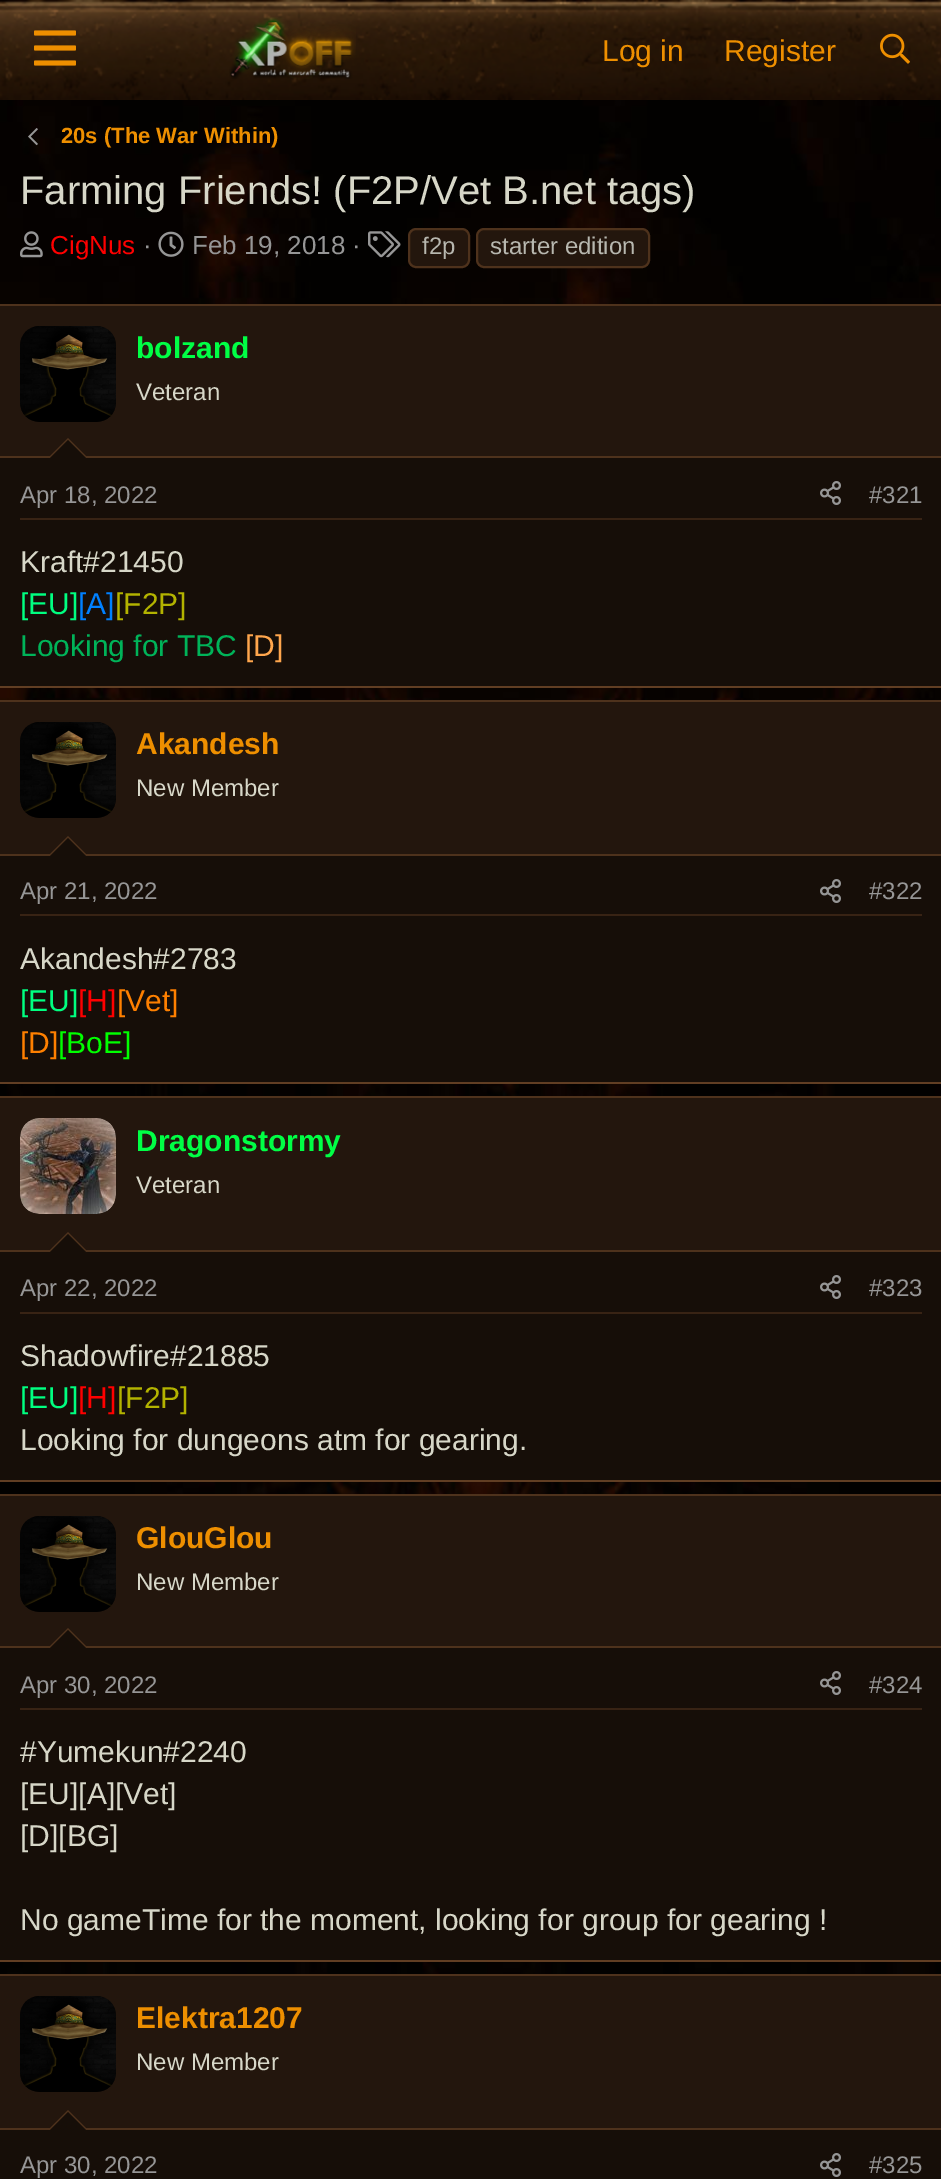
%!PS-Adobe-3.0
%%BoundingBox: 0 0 941 2179
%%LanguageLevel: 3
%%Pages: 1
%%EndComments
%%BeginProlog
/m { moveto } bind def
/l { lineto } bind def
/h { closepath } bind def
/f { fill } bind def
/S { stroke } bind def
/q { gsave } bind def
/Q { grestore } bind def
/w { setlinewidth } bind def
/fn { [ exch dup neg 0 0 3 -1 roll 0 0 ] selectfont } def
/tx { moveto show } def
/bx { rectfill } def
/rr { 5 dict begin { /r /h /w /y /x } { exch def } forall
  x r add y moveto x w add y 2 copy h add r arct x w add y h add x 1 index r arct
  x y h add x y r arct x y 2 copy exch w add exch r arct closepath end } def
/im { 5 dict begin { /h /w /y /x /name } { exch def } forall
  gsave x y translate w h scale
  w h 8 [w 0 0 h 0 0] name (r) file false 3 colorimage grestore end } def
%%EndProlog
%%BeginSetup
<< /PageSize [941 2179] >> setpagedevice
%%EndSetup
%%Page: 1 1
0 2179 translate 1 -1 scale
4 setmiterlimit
1 setgray
0 0 941 2179 bx
(image0.raw) 0 100 941 1874 im
(image1.raw) 0 0 941 100 im
(image2.raw) 34 30 42 36 im
(image3.raw) 229 17 127 62 im
/LiberationSans-Regular 30 fn
0.933 0.561 0 setrgbcolor
(Log in) 602 61 tx
(Register) 724 61 tx
(image4.raw) 880 33 30 31 im
(image5.raw) 28 128 10 18 im
/LiberationSans-Bold 22 fn
(20s \(The War Within\)) 61 143 tx
/LiberationSans-Regular 40 fn
0.843 0.843 0.784 setrgbcolor
(Farming Friends! \(F2P/Vet B.net tags\)) 20 204 tx
(image6.raw) 20 231 23 27 im
/LiberationSans-Regular 26 fn
1 0 0 setrgbcolor
(CigNus) 50 254 tx
0.588 setgray
(·) 143 254 tx
(image7.raw) 158 231 26 26 im
(Feb 19, 2018 ·) 192 254 tx
(image8.raw) 368 231 33 27 im
0.137 0.086 0.051 setrgbcolor
409 229 60 38 7 rr q f Q
0.306 0.196 0.11 setrgbcolor
2 w
S
/LiberationSans-Regular 24 fn
0.718 0.718 0.686 setrgbcolor
(f2p) 422 254 tx
0.137 0.086 0.051 setrgbcolor
477 229 172 38 7 rr q f Q
0.306 0.196 0.11 setrgbcolor
S
0.718 0.718 0.686 setrgbcolor
(starter edition) 490 254 tx
0.086 0.055 0.031 setrgbcolor
0 458 941 228 bx
0.306 0.196 0.11 setrgbcolor
0 304 941 2 bx
0.38 0.243 0.137 setrgbcolor
0 686 941 2 bx
0.137 0.086 0.051 setrgbcolor
0 306 941 150 bx
0.306 0.196 0.11 setrgbcolor
0 456 941 2 bx
(image9.raw) 20 326 96 96 im
/LiberationSans-Bold 30 fn
0 1 0.271 setrgbcolor
(bolzand) 136 358 tx
/LiberationSans-Regular 24 fn
0.843 0.843 0.784 setrgbcolor
(Veteran) 136 400 tx
0.306 0.196 0.11 setrgbcolor
88 458 m 48 458 l 68 438 l h f
0.086 0.055 0.031 setrgbcolor
86 458 m 50 458 l 68 440 l h f
0.22 0.137 0.078 setrgbcolor
20 518 902 2 bx
0.588 setgray
(Apr 18, 2022) 20 503 tx
(image10.raw) 820 481 21 24 im
(#321) 869 503 tx
/LiberationSans-Regular 30 fn
0.843 0.843 0.784 setrgbcolor
(Kraft#21450) 20 572 tx
0 1 0.502 setrgbcolor
([EU]) 20 614 tx
0 0.502 1 setrgbcolor
([A]) 78 614 tx
0.702 0.702 0 setrgbcolor
([F2P]) 115 614 tx
0 0.702 0.349 setrgbcolor
(Looking for TBC) 20 656 tx
1 0.651 0.302 setrgbcolor
([D]) 245 656 tx
0.086 0.055 0.031 setrgbcolor
0 856 941 226 bx
0.306 0.196 0.11 setrgbcolor
0 700 941 2 bx
0.38 0.243 0.137 setrgbcolor
0 1082 941 2 bx
0.137 0.086 0.051 setrgbcolor
0 702 941 152 bx
0.306 0.196 0.11 setrgbcolor
0 854 941 2 bx
(image9.raw) 20 722 96 96 im
/LiberationSans-Bold 30 fn
0.933 0.561 0 setrgbcolor
(Akandesh) 136 754 tx
/LiberationSans-Regular 24 fn
0.843 0.843 0.784 setrgbcolor
(New Member) 136 796 tx
0.306 0.196 0.11 setrgbcolor
88 856 m 48 856 l 68 836 l h f
0.086 0.055 0.031 setrgbcolor
86 856 m 50 856 l 68 838 l h f
0.22 0.137 0.078 setrgbcolor
20 914 902 2 bx
0.588 setgray
(Apr 21, 2022) 20 899 tx
(image10.raw) 820 879 21 24 im
(#322) 869 899 tx
/LiberationSans-Regular 30 fn
0.843 0.843 0.784 setrgbcolor
(Akandesh#2783) 20 969 tx
0 1 0.502 setrgbcolor
([EU]) 20 1011 tx
1 0 0 setrgbcolor
([H]) 78 1011 tx
1 0.502 0 setrgbcolor
([Vet]) 117 1011 tx
([D]) 20 1053 tx
0 1 0 setrgbcolor
([BoE]) 58 1053 tx
0.086 0.055 0.031 setrgbcolor
0 1252 941 228 bx
0.306 0.196 0.11 setrgbcolor
0 1096 941 2 bx
0.38 0.243 0.137 setrgbcolor
0 1480 941 2 bx
0.137 0.086 0.051 setrgbcolor
0 1098 941 152 bx
0.306 0.196 0.11 setrgbcolor
0 1250 941 2 bx
0.086 0.055 0.031 setrgbcolor
20 1118 96 96 20 rr f
(image11.raw) 20 1118 96 96 im
/LiberationSans-Bold 30 fn
0 1 0.271 setrgbcolor
(Dragonstormy) 136 1151 tx
/LiberationSans-Regular 24 fn
0.843 0.843 0.784 setrgbcolor
(Veteran) 136 1193 tx
0.306 0.196 0.11 setrgbcolor
88 1252 m 48 1252 l 68 1232 l h f
0.086 0.055 0.031 setrgbcolor
86 1252 m 50 1252 l 68 1234 l h f
0.22 0.137 0.078 setrgbcolor
20 1312 902 2 bx
0.588 setgray
(Apr 22, 2022) 20 1296 tx
(image10.raw) 820 1275 21 24 im
(#323) 869 1296 tx
/LiberationSans-Regular 30 fn
0.843 0.843 0.784 setrgbcolor
(Shadowfire#21885) 20 1366 tx
0 1 0.502 setrgbcolor
([EU]) 20 1408 tx
1 0 0 setrgbcolor
([H]) 78 1408 tx
0.702 0.702 0 setrgbcolor
([F2P]) 117 1408 tx
0.843 0.843 0.784 setrgbcolor
(Looking for dungeons atm for gearing.) 20 1450 tx
0.086 0.055 0.031 setrgbcolor
0 1648 941 312 bx
0.306 0.196 0.11 setrgbcolor
0 1494 941 2 bx
0.38 0.243 0.137 setrgbcolor
0 1960 941 2 bx
0.137 0.086 0.051 setrgbcolor
0 1496 941 150 bx
0.306 0.196 0.11 setrgbcolor
0 1646 941 2 bx
(image12.raw) 20 1516 96 96 im
/LiberationSans-Bold 30 fn
0.933 0.561 0 setrgbcolor
(GlouGlou) 136 1548 tx
/LiberationSans-Regular 24 fn
0.843 0.843 0.784 setrgbcolor
(New Member) 136 1590 tx
0.306 0.196 0.11 setrgbcolor
88 1648 m 48 1648 l 68 1628 l h f
0.086 0.055 0.031 setrgbcolor
86 1648 m 50 1648 l 68 1630 l h f
0.22 0.137 0.078 setrgbcolor
20 1708 902 2 bx
0.588 setgray
(Apr 30, 2022) 20 1693 tx
(image10.raw) 820 1671 21 24 im
(#324) 869 1693 tx
/LiberationSans-Regular 30 fn
0.843 0.843 0.784 setrgbcolor
(#Yumekun#2240) 20 1762 tx
([EU][A][Vet]) 20 1804 tx
([D][BG]) 20 1846 tx
(No gameTime for the moment, looking for group for gearing !) 20 1930 tx
0.086 0.055 0.031 setrgbcolor
0 2130 941 49 bx
0.306 0.196 0.11 setrgbcolor
0 1974 941 2 bx
0.137 0.086 0.051 setrgbcolor
0 1976 941 152 bx
0.306 0.196 0.11 setrgbcolor
0 2128 941 2 bx
(image9.raw) 20 1996 96 96 im
/LiberationSans-Bold 30 fn
0.933 0.561 0 setrgbcolor
(Elektra1207) 136 2028 tx
/LiberationSans-Regular 24 fn
0.843 0.843 0.784 setrgbcolor
(New Member) 136 2070 tx
0.306 0.196 0.11 setrgbcolor
88 2130 m 48 2130 l 68 2110 l h f
0.086 0.055 0.031 setrgbcolor
86 2130 m 50 2130 l 68 2112 l h f
0.588 setgray
(Apr 30, 2022) 20 2173 tx
(image10.raw) 820 2153 21 24 im
(#325) 869 2173 tx
showpage
%%EOF
